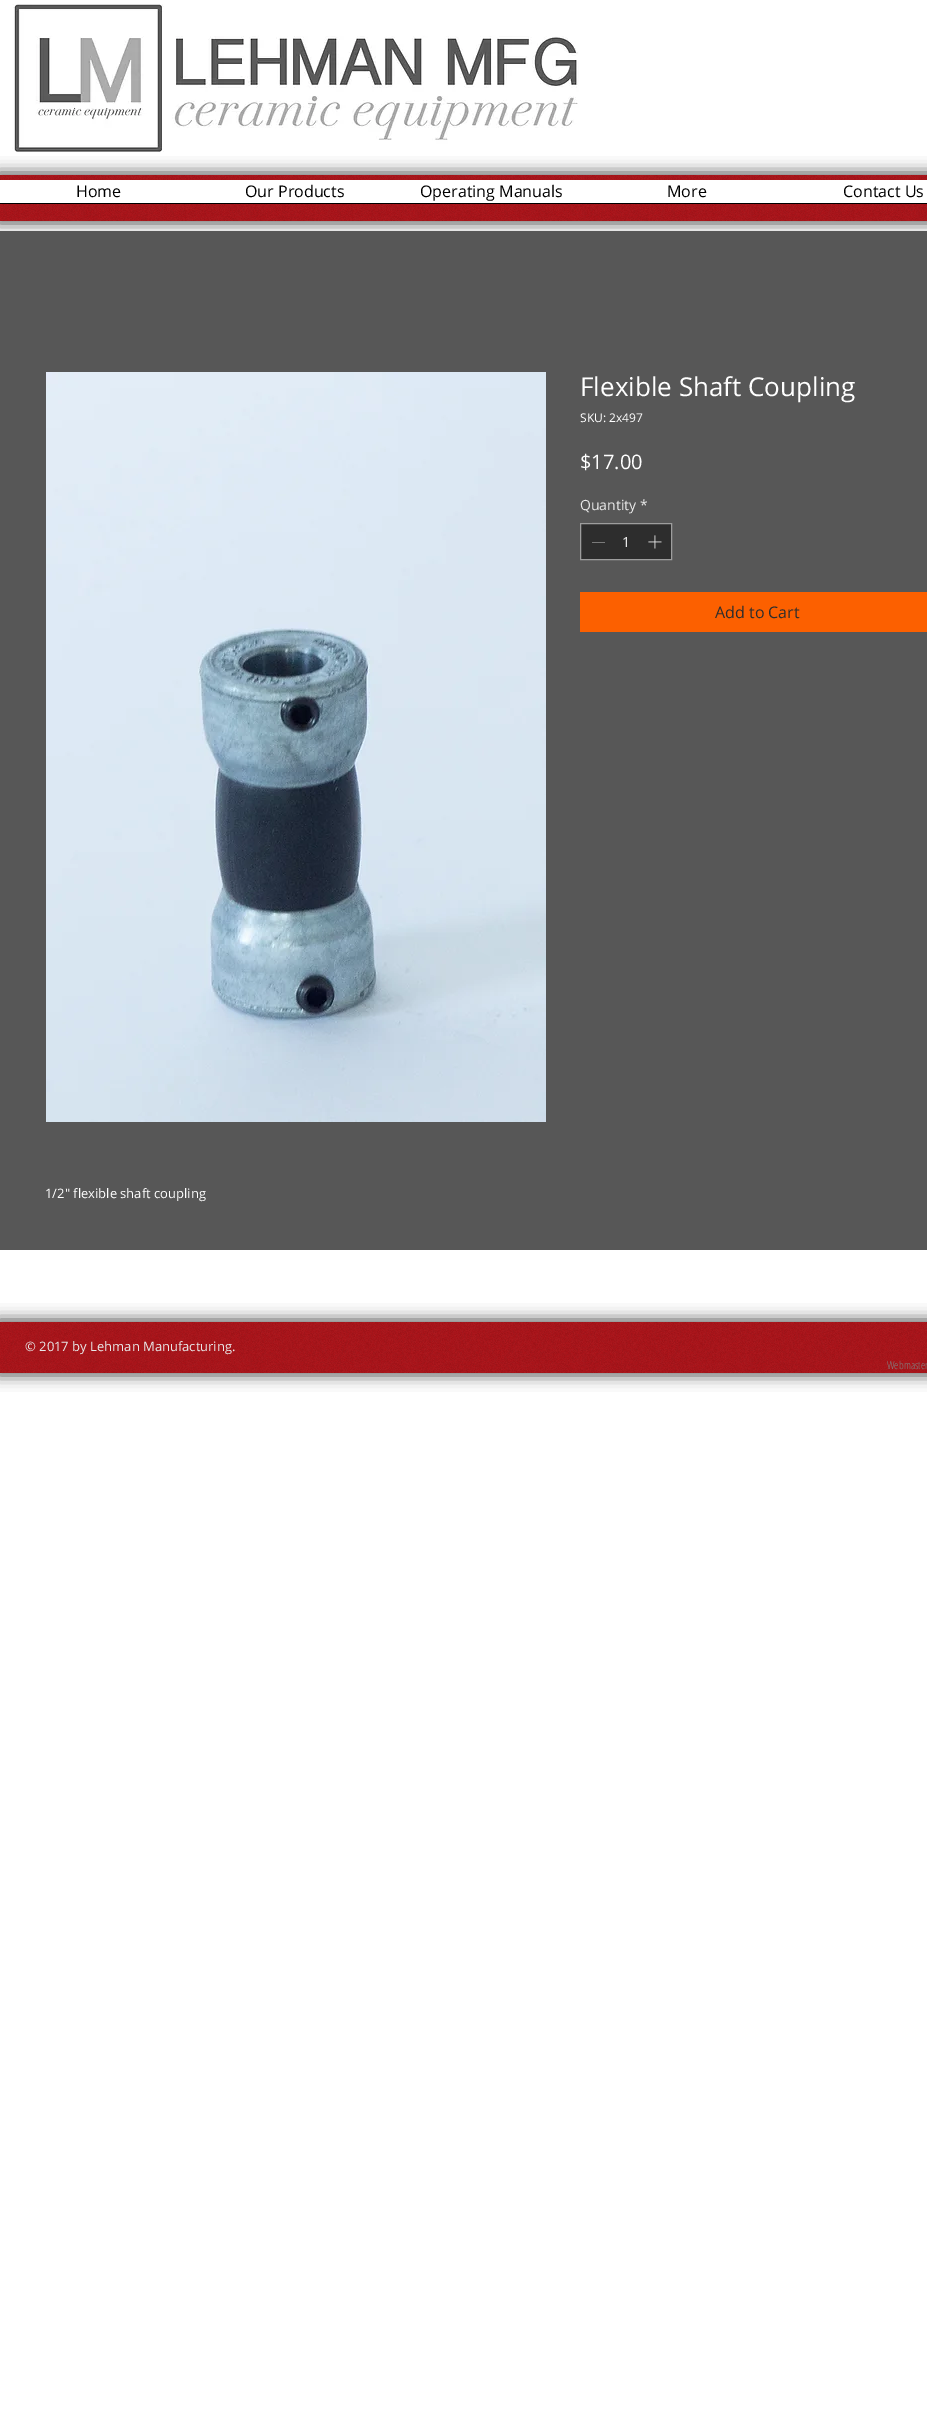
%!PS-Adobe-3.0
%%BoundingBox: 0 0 927 2415
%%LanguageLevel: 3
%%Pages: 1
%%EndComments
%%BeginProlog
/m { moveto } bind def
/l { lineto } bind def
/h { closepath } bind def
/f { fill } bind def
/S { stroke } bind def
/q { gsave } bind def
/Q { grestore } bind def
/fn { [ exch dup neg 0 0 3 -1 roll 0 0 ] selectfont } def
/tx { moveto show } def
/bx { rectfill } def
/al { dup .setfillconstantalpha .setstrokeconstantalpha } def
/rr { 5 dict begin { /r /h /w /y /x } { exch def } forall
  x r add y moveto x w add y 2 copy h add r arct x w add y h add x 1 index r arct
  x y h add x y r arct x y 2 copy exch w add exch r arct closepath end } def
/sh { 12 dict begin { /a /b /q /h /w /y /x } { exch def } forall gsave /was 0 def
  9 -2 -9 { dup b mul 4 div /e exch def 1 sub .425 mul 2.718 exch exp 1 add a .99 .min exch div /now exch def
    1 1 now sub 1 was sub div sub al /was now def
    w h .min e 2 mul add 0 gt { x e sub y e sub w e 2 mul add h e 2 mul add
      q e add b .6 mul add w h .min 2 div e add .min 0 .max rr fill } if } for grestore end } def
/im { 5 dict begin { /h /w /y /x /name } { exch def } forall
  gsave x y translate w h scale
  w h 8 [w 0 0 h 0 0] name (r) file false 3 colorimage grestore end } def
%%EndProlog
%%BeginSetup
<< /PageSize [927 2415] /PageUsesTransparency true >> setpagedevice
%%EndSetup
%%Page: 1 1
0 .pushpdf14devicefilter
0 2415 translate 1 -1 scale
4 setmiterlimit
1 setgray
0 0 927 2415 bx
(image0.raw) 12 4 567 148 im
0 setgray
-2 173 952 50 0 7.5 0.7 sh
0.667 0.075 0.098 setrgbcolor
0 175 927 46 bx
(image1.raw) 0 175 927 46 im
1 setgray
0 180 927 23 bx
0 setgray
0 203 927 1 bx
/OpenSans-Regular 16 fn
(Home) 76 197 tx
(Our Products) 245 197 tx
(Operating Manuals) 420 197 tx
(More) 667 197 tx
(Contact Us) 843 197 tx
0.341 setgray
0 231 927 1019 bx
/OpenSans-Regular 26 fn
1 setgray
(Flexible Shaft Coupling) 580 396 tx
/OpenSans-Regular 12 fn
(SKU: 2x497) 580 422 tx
/OpenSans-Regular 20 fn
($17.00) 580 469 tx
/OpenSans-Regular 14 fn
0.91 setgray
(Quantity) 580 510 tx
(*) 640 510 tx
0.176 setgray
580.5 523.5 m 671.5 523.5 l 671.5 559.5 l 580.5 559.5 l h q f Q
0.616 setgray
S
0.478 setgray
592 542 13 1 bx
0.91 setgray
(1) 622 547 tx
(image2.raw) 648 535 14 14 im
0.988 0.376 0 setrgbcolor
580 592 347 40 bx
/OpenSans-Regular 16 fn
0.176 setgray
(Add to Cart) 715 618 tx
(image3.raw) 46 372 500 750 im
/OpenSans-Regular 13 fn
1 setgray
(1/2" flexible shaft coupling) 45 1198 tx
0 setgray
-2 1320 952 55 0 7.5 0.7 sh
0.667 0.075 0.098 setrgbcolor
0 1322 927 51 bx
(image4.raw) 0 1322 927 51 im
0.91 setgray
(© 2017 by Lehman Manufacturing.) 25 1351 tx
/OpenSansCondensed-Light 11 fn
0.506 setgray
(Webmaster) 887 1369 tx
.poppdf14devicefilter showpage
%%EOF
